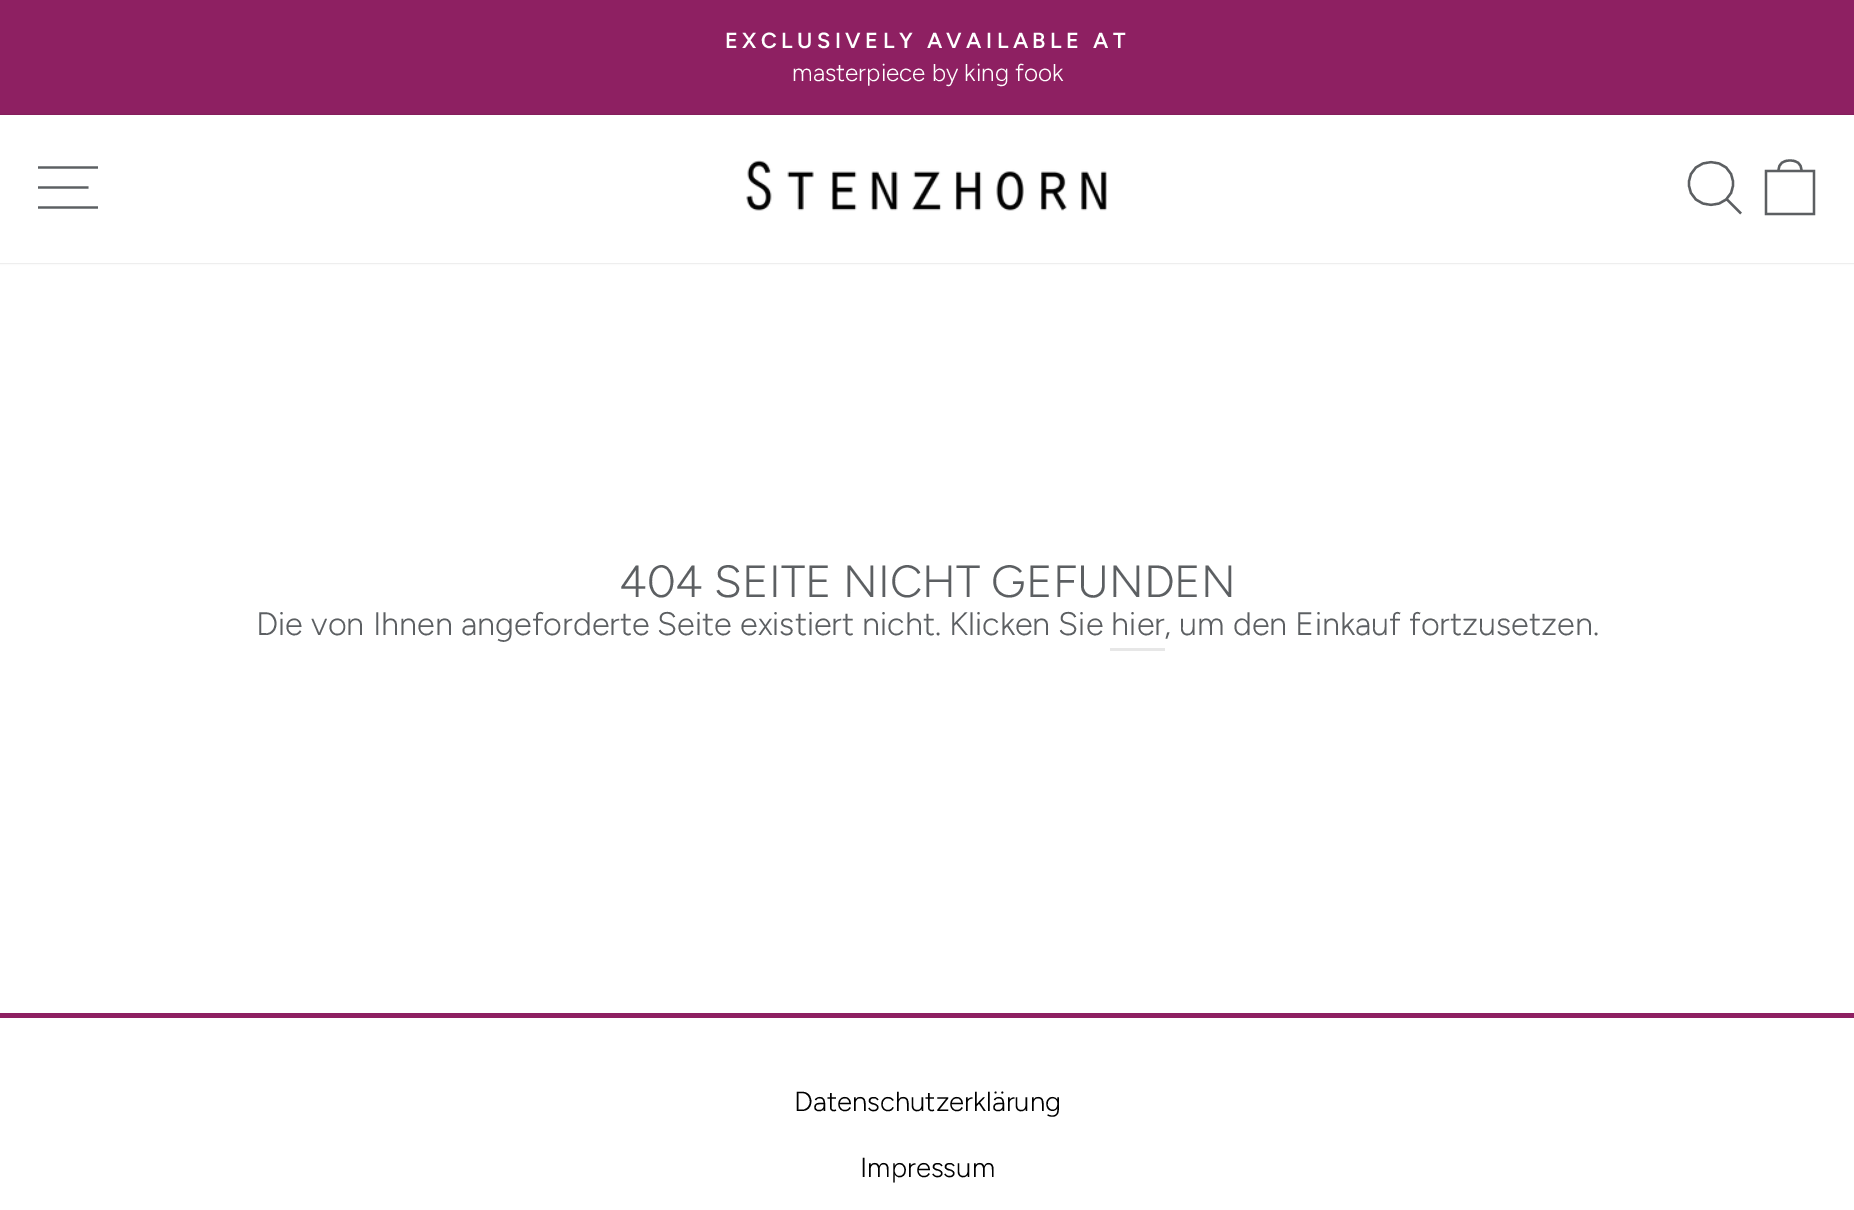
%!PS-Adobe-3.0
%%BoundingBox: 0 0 1854 1210
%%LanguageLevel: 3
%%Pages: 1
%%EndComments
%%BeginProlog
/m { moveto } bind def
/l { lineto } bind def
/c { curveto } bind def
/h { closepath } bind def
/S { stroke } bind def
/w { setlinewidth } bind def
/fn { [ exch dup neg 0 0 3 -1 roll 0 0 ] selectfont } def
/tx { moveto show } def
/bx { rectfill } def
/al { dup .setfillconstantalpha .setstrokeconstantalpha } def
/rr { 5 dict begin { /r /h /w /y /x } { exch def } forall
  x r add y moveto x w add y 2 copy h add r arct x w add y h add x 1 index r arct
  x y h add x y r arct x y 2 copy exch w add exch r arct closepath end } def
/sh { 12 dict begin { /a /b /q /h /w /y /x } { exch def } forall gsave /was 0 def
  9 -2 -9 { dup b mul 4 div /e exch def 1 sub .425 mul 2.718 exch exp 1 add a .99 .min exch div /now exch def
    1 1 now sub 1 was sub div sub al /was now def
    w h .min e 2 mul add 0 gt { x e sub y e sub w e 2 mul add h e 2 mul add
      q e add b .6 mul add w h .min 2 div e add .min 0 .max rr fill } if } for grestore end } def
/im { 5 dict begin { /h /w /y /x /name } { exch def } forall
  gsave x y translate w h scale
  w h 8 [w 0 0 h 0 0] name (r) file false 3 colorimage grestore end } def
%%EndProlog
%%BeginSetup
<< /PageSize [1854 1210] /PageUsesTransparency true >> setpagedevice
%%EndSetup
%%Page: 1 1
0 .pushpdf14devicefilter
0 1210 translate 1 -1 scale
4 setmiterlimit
1 setgray
0 0 1854 1210 bx
0.557 0.125 0.384 setrgbcolor
0 0 1854 115 bx
/Figtree-SemiBold 21.9 fn
1 setgray
725 48 m 4.4 0 (EXCLUSIVELY AVAILABLE AT) ashow
/Figtree-Light 24.4 fn
(masterpiece by king fook) 792 81 tx
0 setgray
0 115 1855 148 0 1 0.2 sh
1 setgray
0 115 1854 148 bx
0.361 0.373 0.384 setrgbcolor
2.3 w
38 167.5 m 98 167.5 l 38 187.5 m 88.5 187.5 l 38 207.5 m 98 207.5 l S
(image0.raw) 746 160 361 51 im
1733 183.5 m 1733 212 1689 212 1689 183.5 c 1689 155 1733 155 1733 183.5 c h 1741 213.5 m 1726.5 199 l S
1766 171 m 1814 171 l 1814 214 l 1766 214 l h 1778.5 171 m 1778.5 163 1783.5 160.5 1790 160.5 c 1796.5 160.5 1801.5 163 1801.5 171 c S
/Figtree-Light 45 fn
(404 SEITE NICHT GEFUNDEN) 619 597 tx
/Figtree-Light 32.5 fn
(Die von Ihnen angeforderte Seite existiert nicht. Klicken Sie hier) 256 635 tx
(, um den Einkauf fortzusetzen.) 1164 635 tx
0.906 setgray
1110 648 55 3 bx
0.557 0.125 0.384 setrgbcolor
0 1013 1854 5 bx
/Figtree-Light 27.6 fn
0 setgray
(Datenschutzerklärung) 794 1111 tx
(Impressum) 860 1177 tx
.poppdf14devicefilter showpage
%%EOF
